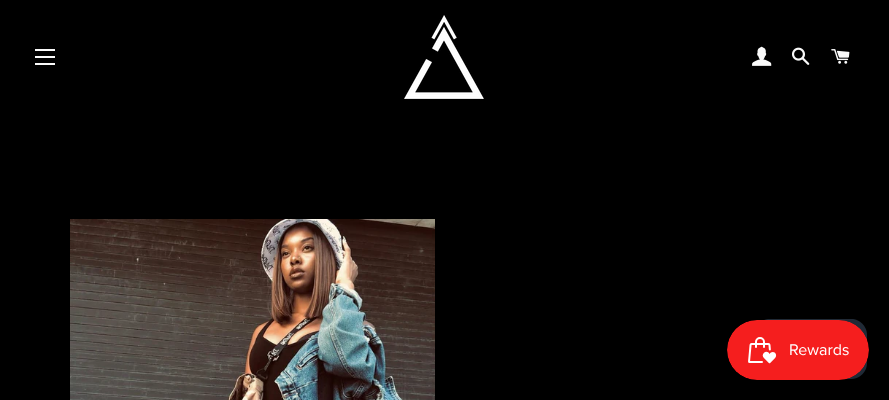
%!PS-Adobe-3.0
%%BoundingBox: 0 0 889 400
%%LanguageLevel: 3
%%Pages: 1
%%EndComments
%%BeginProlog
/f { fill } bind def
/bx { rectfill } def
/rr { 5 dict begin { /r /h /w /y /x } { exch def } forall
  x r add y moveto x w add y 2 copy h add r arct x w add y h add x 1 index r arct
  x y h add x y r arct x y 2 copy exch w add exch r arct closepath end } def
/im { 5 dict begin { /h /w /y /x /name } { exch def } forall
  gsave x y translate w h scale
  w h 8 [w 0 0 h 0 0] name (r) file false 3 colorimage grestore end } def
%%EndProlog
%%BeginSetup
<< /PageSize [889 400] >> setpagedevice
%%EndSetup
%%Page: 1 1
0 400 translate 1 -1 scale
4 setmiterlimit
0 setgray
0 0 889 400 bx
0.98 setgray
35 49 20 2 bx
35 56 20 2 bx
35 63 20 2 bx
(image0.raw) 404 15 80 84 im
(image1.raw) 752 46 20 20 im
(image2.raw) 792 47 18 18 im
(image3.raw) 831 49 19 15 im
(image4.raw) 70 219 365 181 im
0.125 0.165 0.212 setrgbcolor
754 319 113 60 16 rr f
(image5.raw) 727 320 142 60 im
showpage
%%EOF
